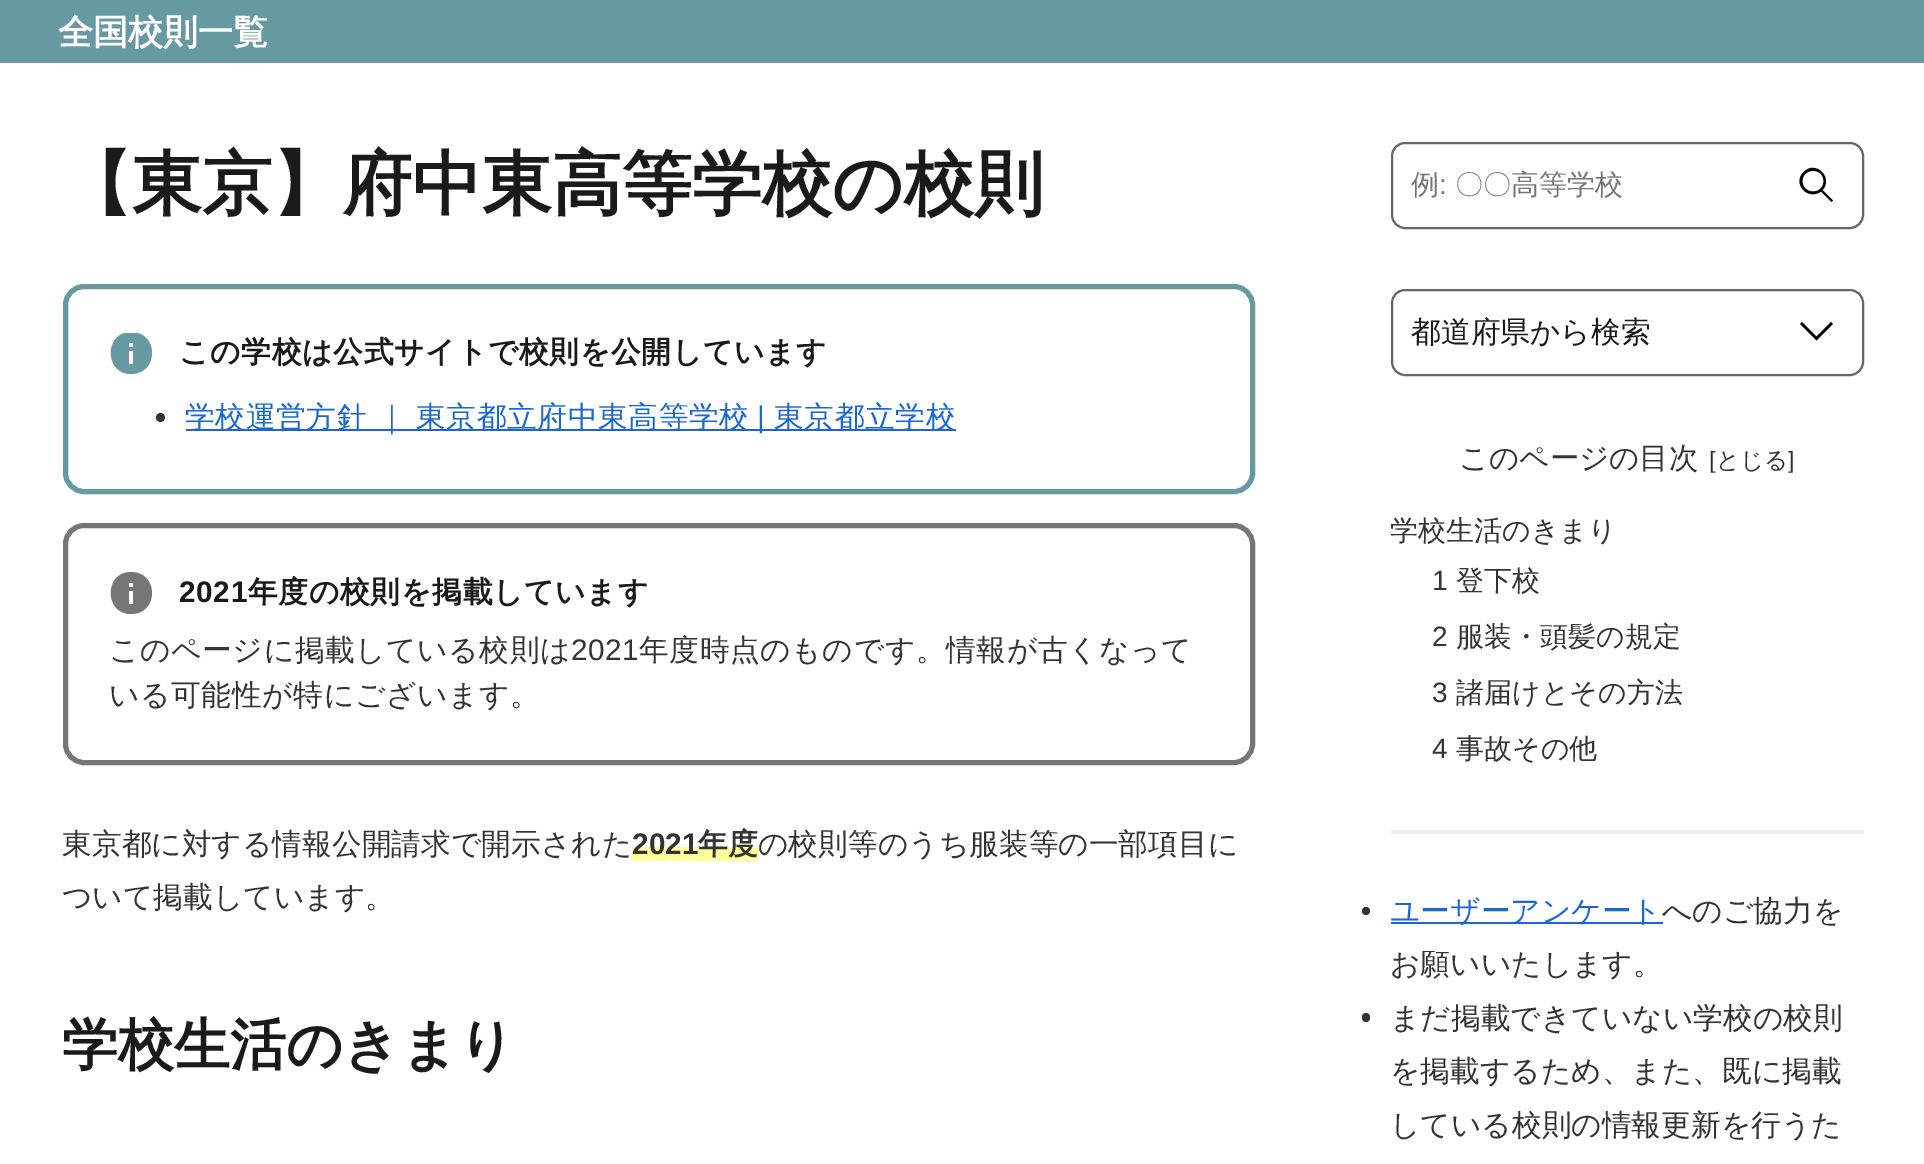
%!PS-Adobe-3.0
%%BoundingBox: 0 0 1924 1164
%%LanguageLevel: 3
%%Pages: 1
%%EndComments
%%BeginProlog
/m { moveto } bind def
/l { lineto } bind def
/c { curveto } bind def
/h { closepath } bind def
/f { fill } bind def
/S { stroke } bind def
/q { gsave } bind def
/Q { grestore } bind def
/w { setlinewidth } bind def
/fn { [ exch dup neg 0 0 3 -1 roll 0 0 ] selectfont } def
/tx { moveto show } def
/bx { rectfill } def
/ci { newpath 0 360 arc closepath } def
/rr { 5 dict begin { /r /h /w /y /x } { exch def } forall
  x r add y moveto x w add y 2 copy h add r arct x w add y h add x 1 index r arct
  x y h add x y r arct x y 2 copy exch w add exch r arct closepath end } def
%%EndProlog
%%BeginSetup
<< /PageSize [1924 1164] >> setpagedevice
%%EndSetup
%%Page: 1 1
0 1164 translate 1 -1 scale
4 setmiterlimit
1 setgray
0 0 1924 1164 bx
0.4 0.6 0.631 setrgbcolor
0 0 1924 63 bx
/WenQuanYiZenHei-Bold 35 fn
1 setgray
(全国校則一覧) 58 44 tx
/WenQuanYiZenHei-Bold 70 fn
0.102 setgray
(【東京】府中東高等学校の校則) 62 208 tx
0.4 0.6 0.631 setrgbcolor
5 w
65.5 286.5 1187 205 18.5 rr S
q
110 333 42 42 rectclip
131 332 m 104 332 104 374 131 374 c 159 374 159 332 131 332 c h 133 364 m 129 364 l 129 351 l 133 351 l h 133 347 m 129 347 l 129 343 l 133 343 l h f
Q
/WenQuanYiZenHei-Bold 29.75 fn
0.102 setgray
179 362 m 0.7 0 (この学校は公式サイトで校則を公開しています) ashow
0.2 setgray
160.5 417.5 4.5 ci f
0.098 0.404 0.824 setrgbcolor
186 429 770 2 bx
/WenQuanYiZenHei-Medium 29.75 fn
185 427 m 0.6 0 (学校運営方針 ｜ 東京都立府中東高等学校) ashow
/LiberationSans-Regular 29.75 fn
757 427 m 0.6 0 (|) ashow
/WenQuanYiZenHei-Medium 29.75 fn
774 427 m 0.6 0 (東京都立学校) ashow
0.463 setgray
65.5 525.5 1187 237 18.5 rr S
131 572 m 104 572 104 614 131 614 c 159 614 159 572 131 572 c h 133 604 m 129 604 l 129 591 l 133 591 l h 133 587 m 129 587 l 129 583 l 133 583 l h f
/LiberationSans-Bold 29.75 fn
0.102 setgray
179 602 m 0.7 0 (2021) ashow
/WenQuanYiZenHei-Bold 29.75 fn
248 602 m 0.7 0 (年度の校則を掲載しています) ashow
/WenQuanYiZenHei-Medium 29.75 fn
0.2 setgray
109 660 m 0.6 0 (このページに掲載している校則は) ashow
/LiberationSans-Regular 29.75 fn
571 660 m 0.6 0 (2021) ashow
/WenQuanYiZenHei-Medium 29.75 fn
639 660 m 0.6 0 (年度時点のものです。情報が古くなって) ashow
109 705 m 0.6 0 (いる可能性が特にございます。) ashow
(東京都に対する情報公開請求で開示された) 62 854 tx
1 1 0.6 setrgbcolor
632 847 126 14 bx
/LiberationSans-Bold 29.75 fn
0.2 setgray
(2021) 632 854 tx
/WenQuanYiZenHei-Bold 29.75 fn
(年度) 698 854 tx
/WenQuanYiZenHei-Medium 29.75 fn
(の校則等のうち服装等の一部項目に) 758 854 tx
(ついて掲載しています。) 62 907 tx
/WenQuanYiZenHei-Bold 56 fn
0.102 setgray
(学校生活のきまり) 62 1064 tx
0 setgray
1833 200.5 m 1822.5 190 l 1833.5 178 1816 159.5 1803.5 172 c 1792 183.5 1807.5 201 1821 191.5 c 1831.5 202 l h 1802.5 181 m 1802.5 167.5 1823.5 167.5 1823.5 181 c 1823.5 195 1802.5 195 1802.5 181 c h f
0.4 setgray
2 w
1392 143 471 85 13 rr S
/WenQuanYiZenHei-Medium 28 fn
0.459 setgray
(例) 1411 194 tx
/LiberationSans-Regular 28 fn
(:) 1439 194 tx
/WenQuanYiZenHei-Medium 28 fn
(〇〇高等学校) 1455 194 tx
0 setgray
1816.5 340.5 m 1800 324 l 1802 322 l 1816.5 336.5 l 1831 322 l 1833 324 l h f
0.4 setgray
1392 290 471 85 13 rr S
/WenQuanYiZenHei-Medium 29.75 fn
0.102 setgray
(都道府県から検索) 1411 342 tx
/WenQuanYiZenHei-Medium 29.5 fn
0.2 setgray
(このページの目次) 1459 468 tx
/LiberationSans-Regular 23.5 fn
([) 1709 468 tx
/WenQuanYiZenHei-Medium 23.5 fn
(とじる) 1716 468 tx
/LiberationSans-Regular 23.5 fn
(]) 1788 468 tx
/WenQuanYiZenHei-Medium 28 fn
(学校生活のきまり) 1390 540 tx
/LiberationSans-Regular 28 fn
(1) 1432 590 tx
/WenQuanYiZenHei-Medium 28 fn
(登下校) 1456 590 tx
/LiberationSans-Regular 28 fn
(2) 1432 646 tx
/WenQuanYiZenHei-Medium 28 fn
(服装・頭髪の規定) 1456 646 tx
/LiberationSans-Regular 28 fn
(3) 1432 702 tx
/WenQuanYiZenHei-Medium 28 fn
(諸届けとその方法) 1456 702 tx
/LiberationSans-Regular 28 fn
(4) 1432 758 tx
/WenQuanYiZenHei-Medium 28 fn
(事故その他) 1456 758 tx
0.933 setgray
1391 830 473 4 bx
0.2 setgray
1366 911 4 ci f
0.098 0.404 0.824 setrgbcolor
1391 922 272 2 bx
/WenQuanYiZenHei-Medium 29.75 fn
(ユーザーアンケート) 1390 921 tx
0.2 setgray
(へのご協力を) 1662 921 tx
(お願いいたします。) 1390 974 tx
1362 1013 8 9 4 rr f
(まだ掲載できていない学校の校則) 1390 1028 tx
(を掲載するため、また、既に掲載) 1390 1081 tx
(している校則の情報更新を行うた) 1390 1135 tx
showpage
%%EOF
